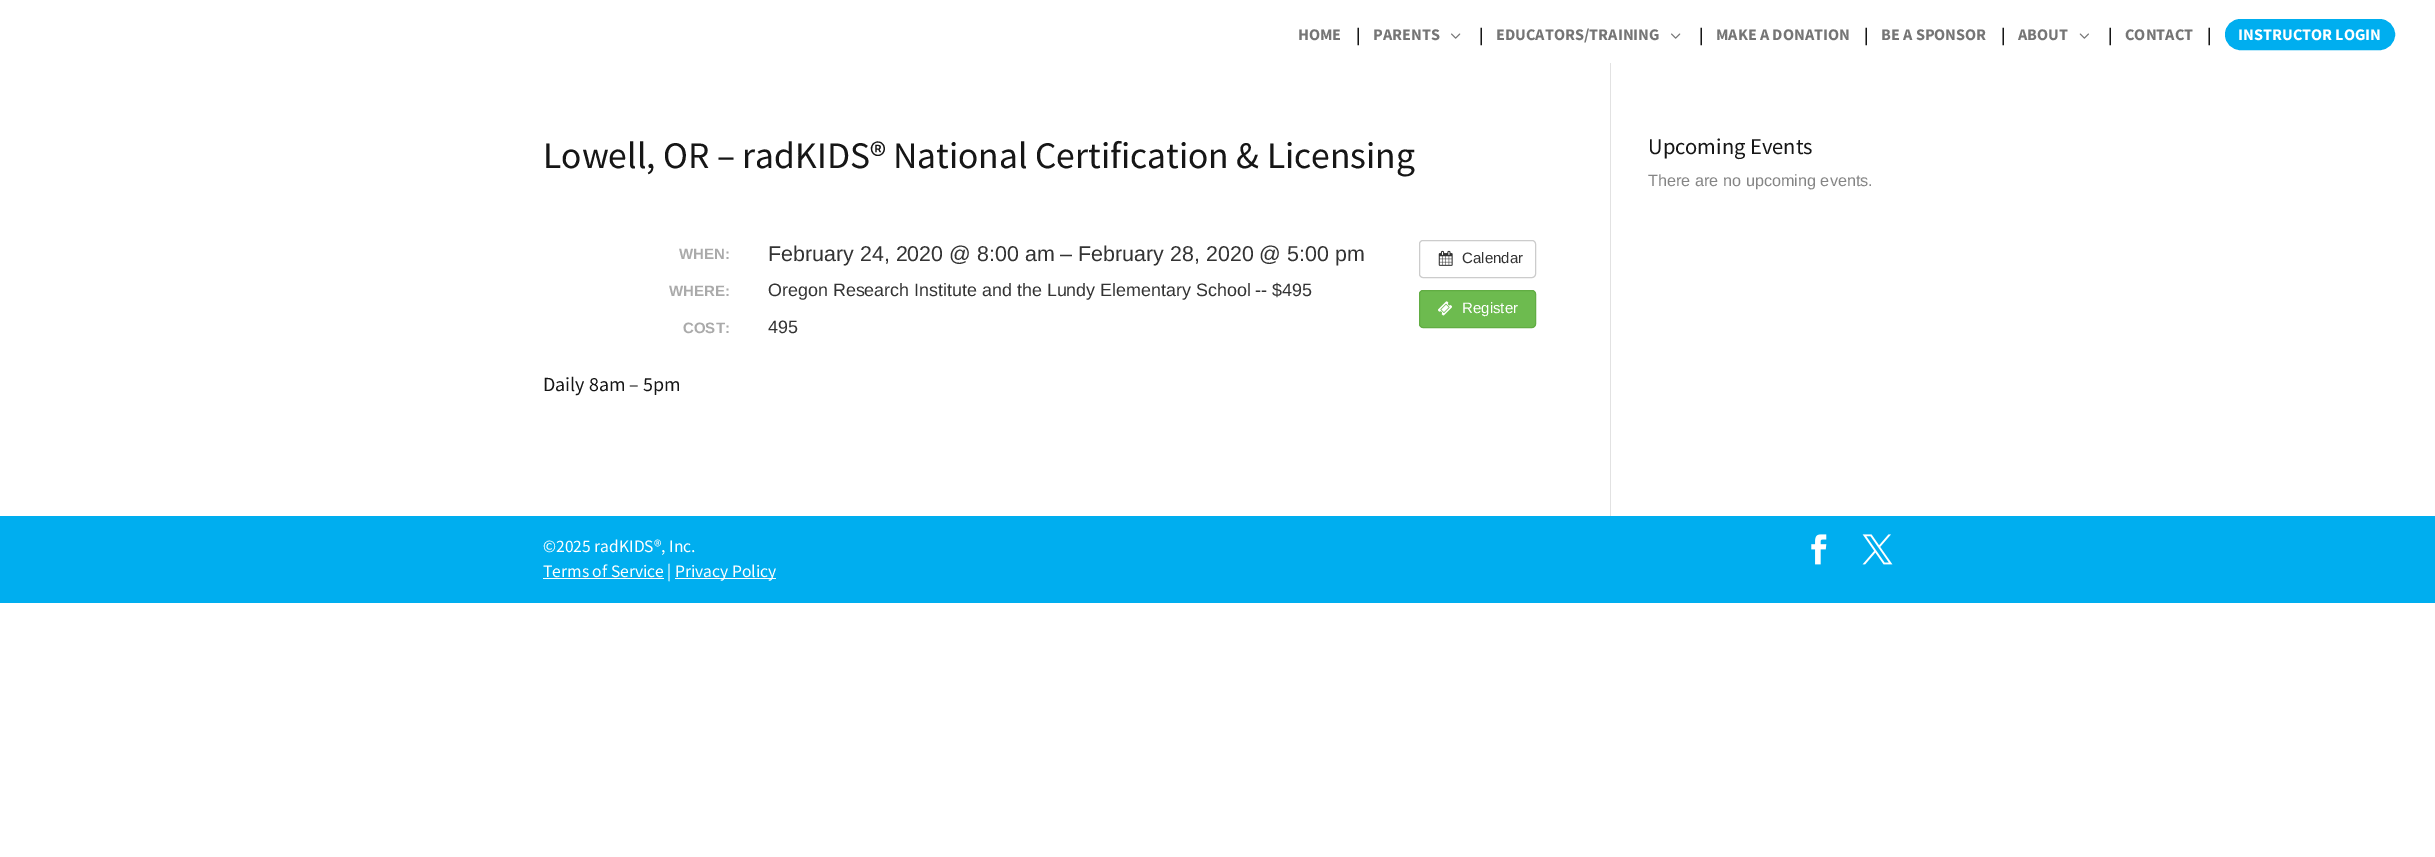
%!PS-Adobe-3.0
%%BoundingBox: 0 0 2435 857
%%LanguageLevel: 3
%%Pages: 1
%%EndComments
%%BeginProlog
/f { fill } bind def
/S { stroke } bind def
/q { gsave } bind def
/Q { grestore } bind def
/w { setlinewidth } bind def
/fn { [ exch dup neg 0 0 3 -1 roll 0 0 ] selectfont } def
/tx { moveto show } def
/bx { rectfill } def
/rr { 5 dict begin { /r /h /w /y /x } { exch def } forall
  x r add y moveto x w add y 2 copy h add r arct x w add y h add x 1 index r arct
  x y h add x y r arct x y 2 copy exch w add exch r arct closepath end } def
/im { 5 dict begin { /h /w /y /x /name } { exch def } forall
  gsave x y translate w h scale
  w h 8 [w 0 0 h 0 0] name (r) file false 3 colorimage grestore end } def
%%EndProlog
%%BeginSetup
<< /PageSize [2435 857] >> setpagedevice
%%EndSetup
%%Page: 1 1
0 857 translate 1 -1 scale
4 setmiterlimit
1 setgray
0 0 2435 857 bx
/SourceSansPro-Bold 16.25 fn
0.459 setgray
(HOME) 1298 40 tx
/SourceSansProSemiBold-SemiBold 17.5 fn
0.086 setgray
(|) 1356 41 tx
/SourceSansPro-Bold 16.25 fn
0.459 setgray
(PARENTS) 1373 40 tx
(image0.raw) 1451 33 10 6 im
/SourceSansProSemiBold-SemiBold 17.5 fn
0.086 setgray
(|) 1479 41 tx
/SourceSansPro-Bold 16.25 fn
0.459 setgray
(EDUCATORS/TRAINING) 1496 40 tx
(image0.raw) 1671 33 10 6 im
/SourceSansProSemiBold-SemiBold 17.5 fn
0.086 setgray
(|) 1699 41 tx
/SourceSansPro-Bold 16.25 fn
0.459 setgray
(MAKE A DONATION) 1716 40 tx
/SourceSansProSemiBold-SemiBold 17.5 fn
0.086 setgray
(|) 1864 41 tx
/SourceSansPro-Bold 16.25 fn
0.459 setgray
(BE A SPONSOR) 1881 40 tx
/SourceSansProSemiBold-SemiBold 17.5 fn
0.086 setgray
(|) 2001 41 tx
/SourceSansPro-Bold 16.25 fn
0.459 setgray
(ABOUT) 2018 40 tx
(image1.raw) 2079 33 10 6 im
/SourceSansProSemiBold-SemiBold 17.5 fn
0.086 setgray
(|) 2108 41 tx
/SourceSansPro-Bold 16.25 fn
0.459 setgray
(CONTACT) 2125 40 tx
/SourceSansProSemiBold-SemiBold 17.5 fn
0.086 setgray
(|) 2207 41 tx
0 0.682 0.937 setrgbcolor
2226.5 20.5 167 28 14 rr q f Q
3 w
S
/SourceSansPro-Bold 16.25 fn
1 setgray
(INSTRUCTOR LOGIN) 2238 40 tx
0.886 setgray
1610 63 1 453 bx
/SourceSansPro-Regular 37.5 fn
0.086 setgray
(Lowell, OR – radKIDS® National Certification & Licensing) 543 168 tx
/LiberationSans-Bold 15 fn
0.667 setgray
(WHEN:) 679 259 tx
/LiberationSans-Regular 21.45 fn
0.2 setgray
(February 24, 2020 @ 8:00 am – February 28, 2020 @ 5:00 pm) 768 261 tx
/LiberationSans-Bold 15 fn
0.667 setgray
(WHERE:) 669 296 tx
/LiberationSans-Regular 17.9 fn
0.2 setgray
(Oregon Research Institute and the Lundy Elementary School -- $495) 768 296 tx
/LiberationSans-Bold 15 fn
0.667 setgray
(COST:) 683 333 tx
/LiberationSans-Regular 17.9 fn
0.2 setgray
(495) 768 333 tx
0.8 setgray
1 w
1419.5 240.5 116 37 3.5 rr S
(image2.raw) 1438 250 15 16 im
/LiberationSans-Regular 15 fn
0.2 setgray
(Calendar) 1462 263 tx
0.427 0.733 0.31 setrgbcolor
1419.5 290.5 116 37 3.5 rr q f Q
0.38 0.678 0.263 setrgbcolor
S
(image3.raw) 1438 301 14 15 im
1 setgray
(Register) 1462 313 tx
/SourceSansPro-Regular 20 fn
0.086 setgray
(Daily 8am – 5pm) 543 391 tx
/SourceSansPro-Regular 22.5 fn
(Upcoming Events) 1648 154 tx
/LiberationSans-Regular 16.25 fn
0.522 setgray
(There are no upcoming events.) 1648 186 tx
0 0.682 0.937 setrgbcolor
0 516 2435 87 bx
/SourceSansPro-Regular 17.5 fn
1 setgray
(©2025 radKIDS®, Inc.) 543 552 tx
0.988 setgray
543 578 121 1 bx
1 setgray
(Terms of Service |) 543 577 tx
0.988 setgray
675 578 101 1 bx
1 setgray
(Privacy Policy) 675 577 tx
(image4.raw) 1811 534 16 31 im
(image5.raw) 1862 534 31 31 im
showpage
%%EOF
